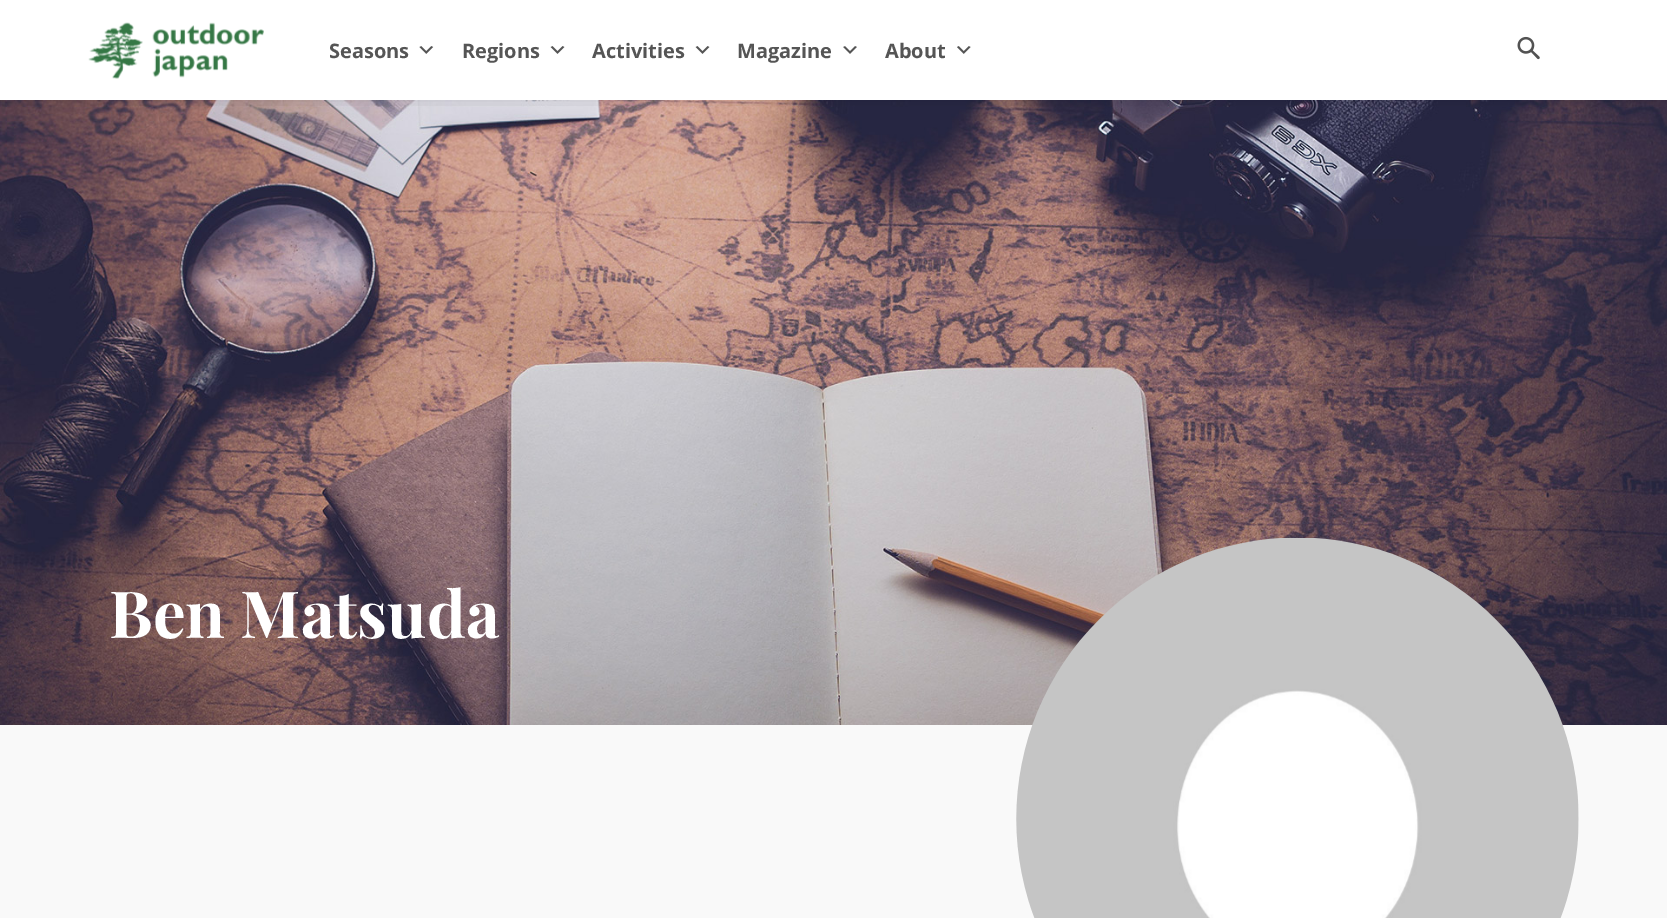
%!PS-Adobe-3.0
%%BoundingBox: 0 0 1667 918
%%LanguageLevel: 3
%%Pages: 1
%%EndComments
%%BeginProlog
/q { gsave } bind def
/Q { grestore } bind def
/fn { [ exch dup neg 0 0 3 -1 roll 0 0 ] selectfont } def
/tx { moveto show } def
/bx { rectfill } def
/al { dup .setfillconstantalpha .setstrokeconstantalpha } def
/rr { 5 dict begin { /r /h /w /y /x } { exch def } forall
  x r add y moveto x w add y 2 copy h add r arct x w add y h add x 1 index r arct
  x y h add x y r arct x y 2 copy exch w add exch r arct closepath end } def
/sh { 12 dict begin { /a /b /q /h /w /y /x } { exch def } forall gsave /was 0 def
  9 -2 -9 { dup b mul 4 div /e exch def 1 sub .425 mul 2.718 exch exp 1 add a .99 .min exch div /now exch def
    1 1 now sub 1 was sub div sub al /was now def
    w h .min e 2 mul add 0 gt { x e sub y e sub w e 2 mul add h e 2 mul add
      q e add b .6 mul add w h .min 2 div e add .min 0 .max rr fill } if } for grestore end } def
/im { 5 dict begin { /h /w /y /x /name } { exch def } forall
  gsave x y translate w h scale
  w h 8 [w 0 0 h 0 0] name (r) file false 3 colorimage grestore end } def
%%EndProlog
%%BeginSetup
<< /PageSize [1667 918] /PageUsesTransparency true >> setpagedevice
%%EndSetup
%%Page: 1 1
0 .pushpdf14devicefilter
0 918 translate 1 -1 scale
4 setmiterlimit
1 setgray
0 0 1667 918 bx
(image7.raw) 0 100 1667 625 im
q
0 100 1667 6 rectclip
0 setgray
0 0 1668 100 0 7.5 0.1 sh
Q
(image0.raw) 88 22 176 57 im
/OpenSans-Bold 20 fn
0.333 setgray
(Seasons) 329 58 tx
(image1.raw) 419 46 15 8 im
(Regions) 462 58 tx
(image2.raw) 550 46 15 8 im
(Activities) 592 58 tx
(image2.raw) 695 46 15 8 im
(Magazine) 737 58 tx
(image3.raw) 843 46 14 8 im
(About) 885 58 tx
(image4.raw) 957 46 14 8 im
(image5.raw) 1517 36 23 24 im
0.976 setgray
0 725 1667 193 bx
(image6.raw) 1016 538 563 380 im
/PlayfairDisplay-Bold 65 fn
1 setgray
(Ben Matsuda) 109 638 tx
.poppdf14devicefilter showpage
%%EOF
